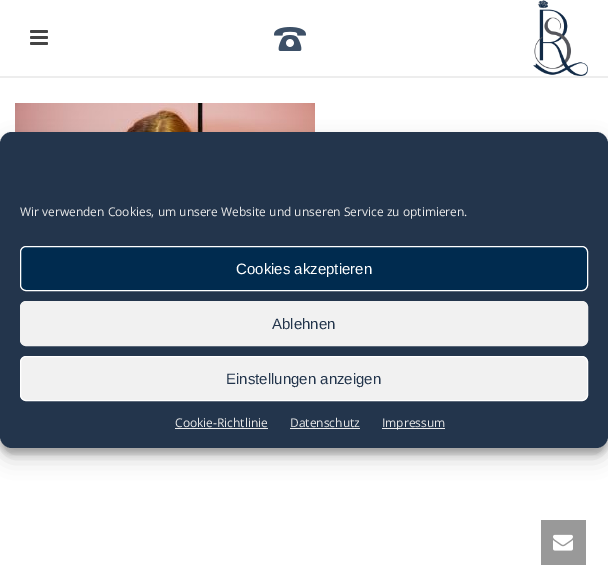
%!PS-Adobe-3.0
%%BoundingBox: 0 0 608 580
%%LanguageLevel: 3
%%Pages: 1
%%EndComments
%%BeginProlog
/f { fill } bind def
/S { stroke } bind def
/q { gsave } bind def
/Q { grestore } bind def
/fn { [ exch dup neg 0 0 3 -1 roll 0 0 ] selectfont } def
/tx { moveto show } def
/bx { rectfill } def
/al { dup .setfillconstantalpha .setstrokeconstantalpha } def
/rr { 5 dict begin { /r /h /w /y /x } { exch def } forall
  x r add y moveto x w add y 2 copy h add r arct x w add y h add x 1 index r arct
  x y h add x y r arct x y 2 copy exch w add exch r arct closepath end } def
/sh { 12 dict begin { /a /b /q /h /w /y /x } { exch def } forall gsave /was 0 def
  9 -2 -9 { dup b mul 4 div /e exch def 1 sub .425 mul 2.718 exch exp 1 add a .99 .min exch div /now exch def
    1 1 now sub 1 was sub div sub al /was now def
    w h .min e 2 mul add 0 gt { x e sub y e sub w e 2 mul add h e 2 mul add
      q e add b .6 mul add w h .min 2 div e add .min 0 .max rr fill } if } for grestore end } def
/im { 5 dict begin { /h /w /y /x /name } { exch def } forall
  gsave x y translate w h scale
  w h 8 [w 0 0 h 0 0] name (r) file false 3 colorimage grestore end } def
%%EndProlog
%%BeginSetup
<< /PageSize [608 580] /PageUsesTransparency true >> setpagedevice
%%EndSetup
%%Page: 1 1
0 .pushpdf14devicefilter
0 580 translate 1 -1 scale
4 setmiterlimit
1 setgray
0 0 608 580 bx
0.929 setgray
0 76 608 2 bx
0.267 setgray
30 30 18 3 1.5 rr f
30 36 18 3 1.5 rr f
30 42 18 3 1.5 rr f
(image0.raw) 533 0 55 76 im
(image1.raw) 274 27 32 24 im
(image2.raw) 15 103 300 29 im
0 setgray
0 138 608 316 12 3 0.23 sh
0 142 608 316 12 10 0.19 sh
0.137 0.208 0.298 setrgbcolor
0 132 608 316 12 rr f
/OpenSans-Regular 12 fn
0.918 setgray
(Wir verwenden Cookies, um unsere Website und unseren Service zu optimieren.) 20 216 tx
0 0.169 0.31 setrgbcolor
20.5 246.5 567 44 5.5 rr q f Q
1 setgray
S
/LiberationSans-Regular 15 fn
(Cookies akzeptieren) 236 274 tx
0.945 setgray
20.5 301.5 567 44 5.5 rr q f Q
S
0.137 0.208 0.298 setrgbcolor
(Ablehnen) 272 329 tx
0.945 setgray
20.5 356.5 567 44 5.5 rr q f Q
1 setgray
S
0.137 0.208 0.298 setrgbcolor
(Einstellungen anzeigen) 226 384 tx
/OpenSans-Regular 12 fn
0.918 setgray
(Cookie-Richtlinie) 175 427 tx
175 428 93 1 bx
(Datenschutz) 290 427 tx
290 428 70 1 bx
382 428 63 1 bx
(Impressum) 382 427 tx
0.6 setgray
541 520 45 45 bx
(image3.raw) 553 534 20 17 im
.poppdf14devicefilter showpage
%%EOF
